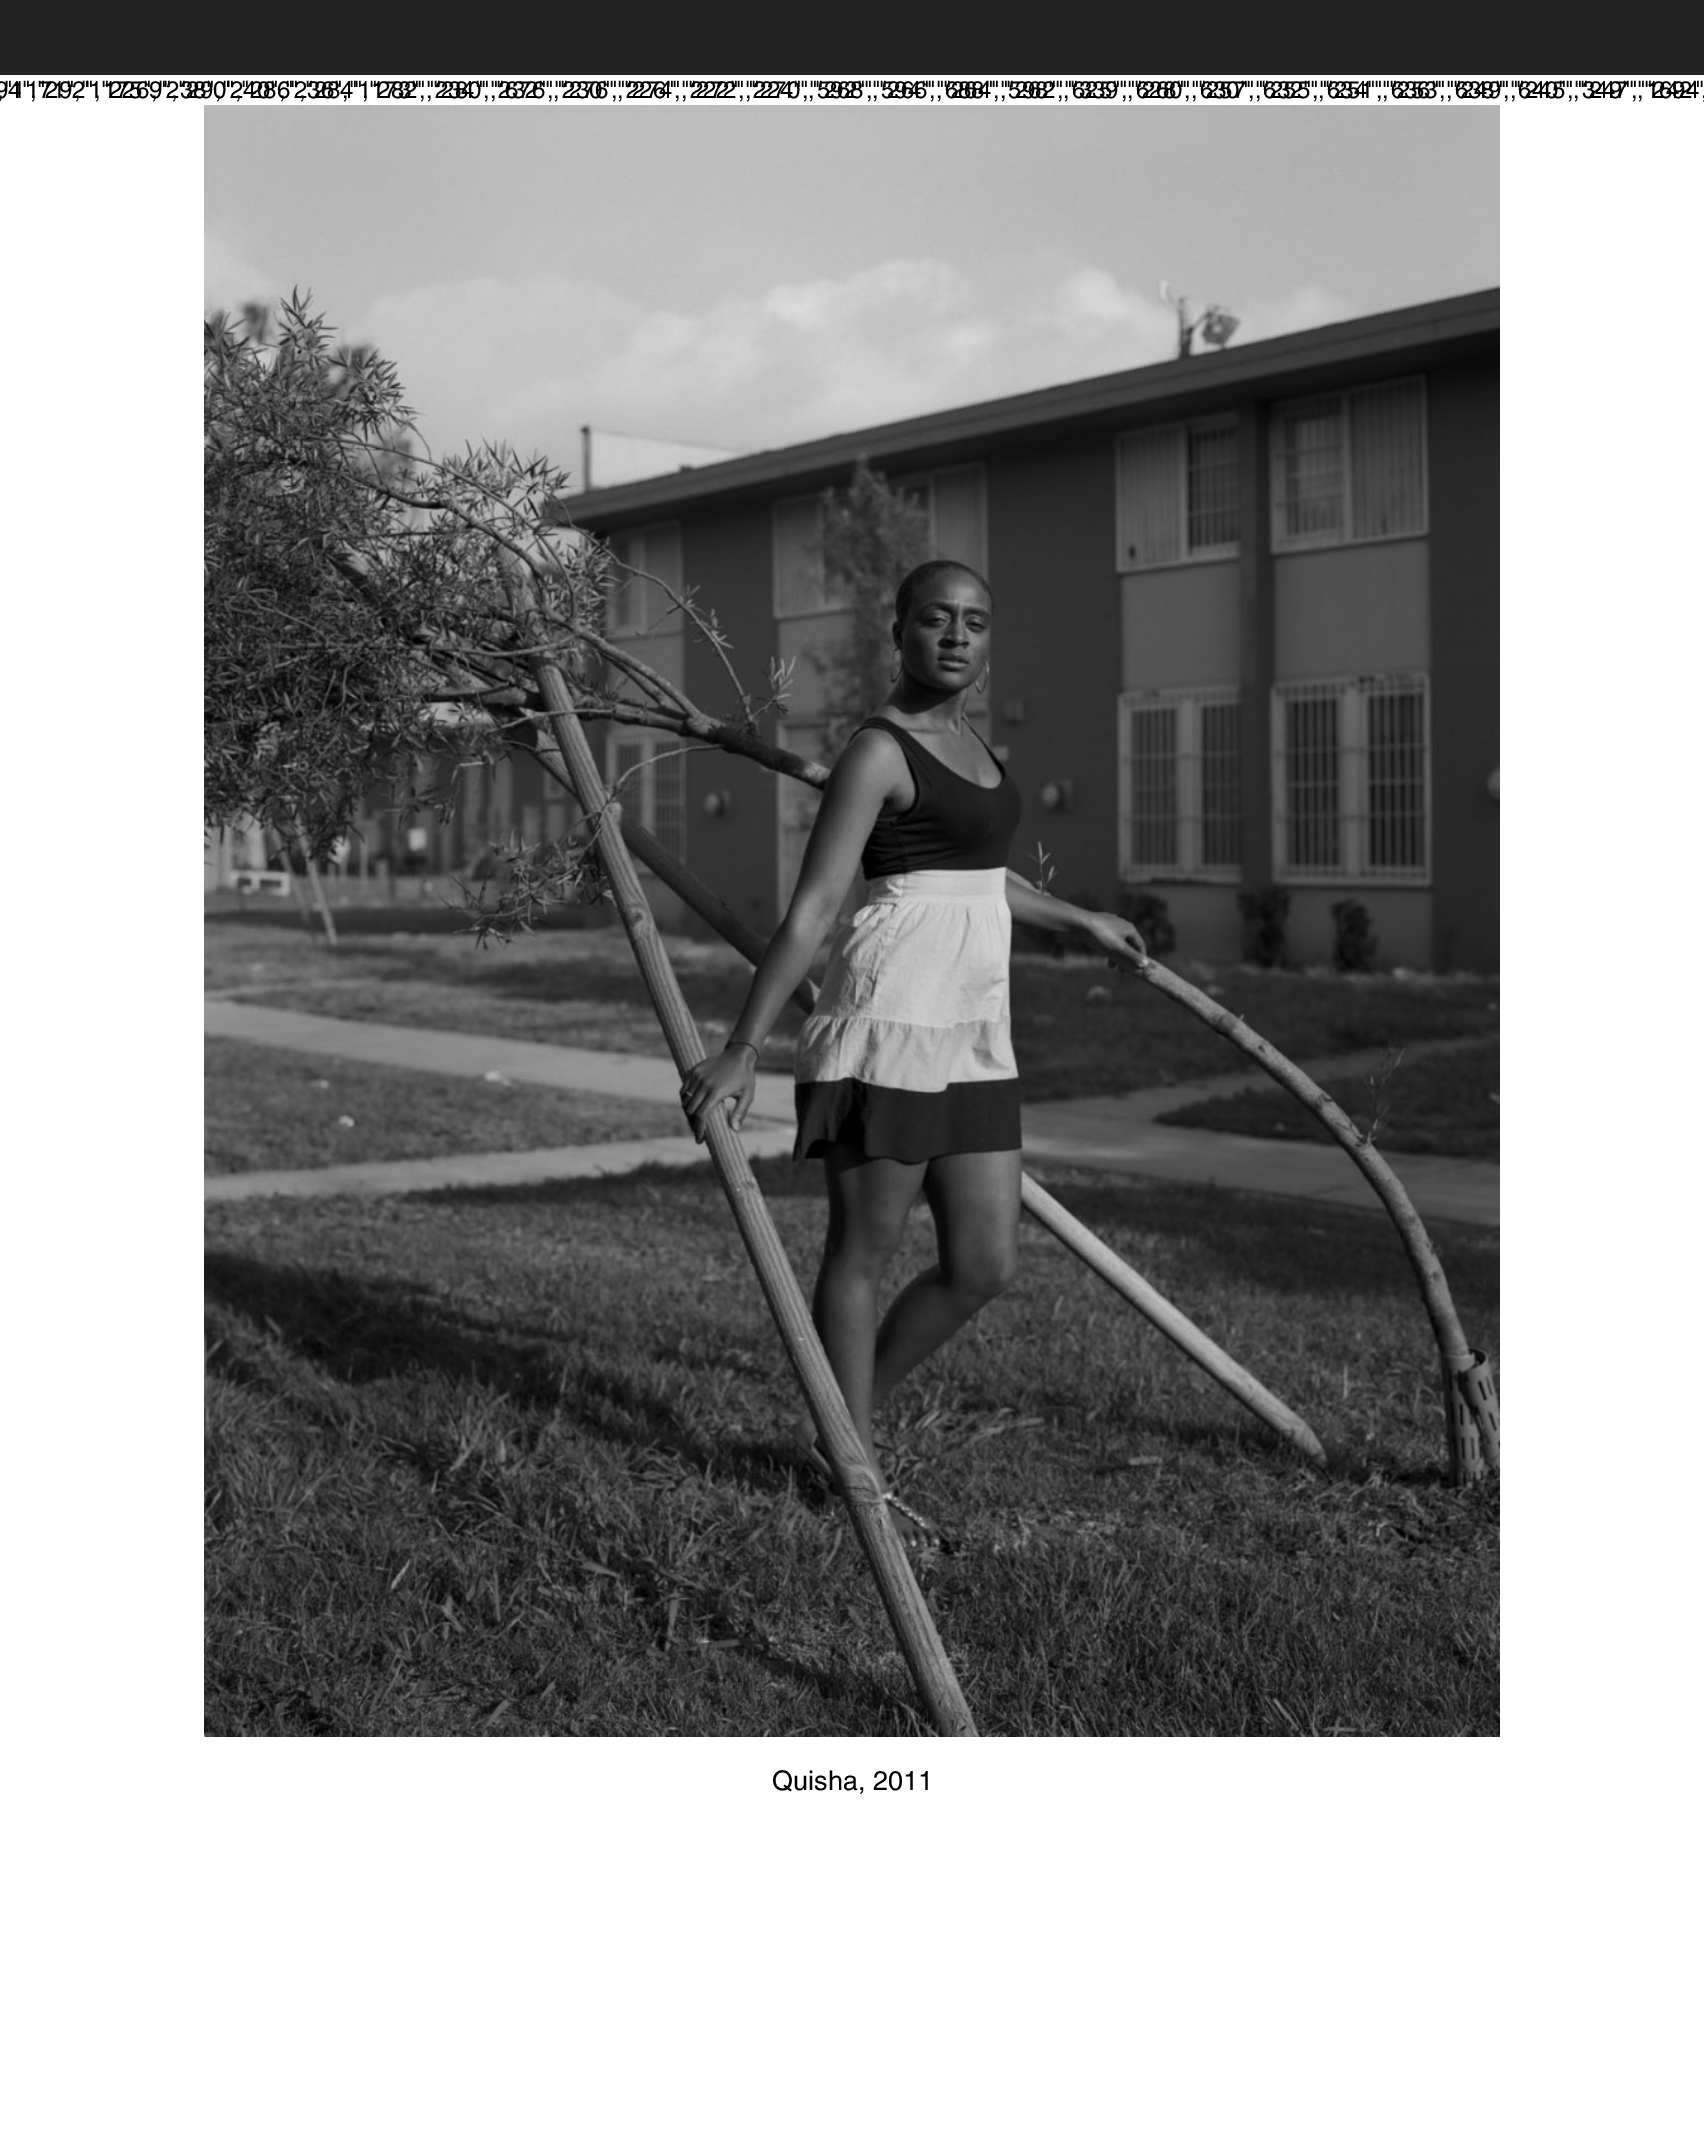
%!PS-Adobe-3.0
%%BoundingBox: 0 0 1704 2147
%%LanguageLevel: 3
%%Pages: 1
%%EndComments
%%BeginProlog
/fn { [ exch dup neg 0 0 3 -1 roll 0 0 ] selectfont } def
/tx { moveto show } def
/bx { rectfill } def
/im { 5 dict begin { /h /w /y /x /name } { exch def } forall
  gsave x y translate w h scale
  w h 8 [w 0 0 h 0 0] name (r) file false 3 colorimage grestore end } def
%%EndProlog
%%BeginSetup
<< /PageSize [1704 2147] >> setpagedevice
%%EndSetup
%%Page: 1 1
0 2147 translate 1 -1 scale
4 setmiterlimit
1 setgray
0 0 1704 2147 bx
0.133 setgray
0 0 1704 75 bx
/Helvetica-Regular 24 fn
0 setgray
(,"1171","1175","238","240","236","1173","234","232","230","226","222","224","592","594","688","598","625","628","630","632","634","636","638","640","349","1694") -3 98 tx
(94","292","2269","290","286","284","282","280","676","276","274","272","270","268","266","264","262","339","260","257","255","251","253","249","245","247","242",) -5 98 tx
(image0.raw) 204 105 1296 1632 im
/Helvetica-Regular 27 fn
(Quisha, 2011) 772 1790 tx
showpage
%%EOF
